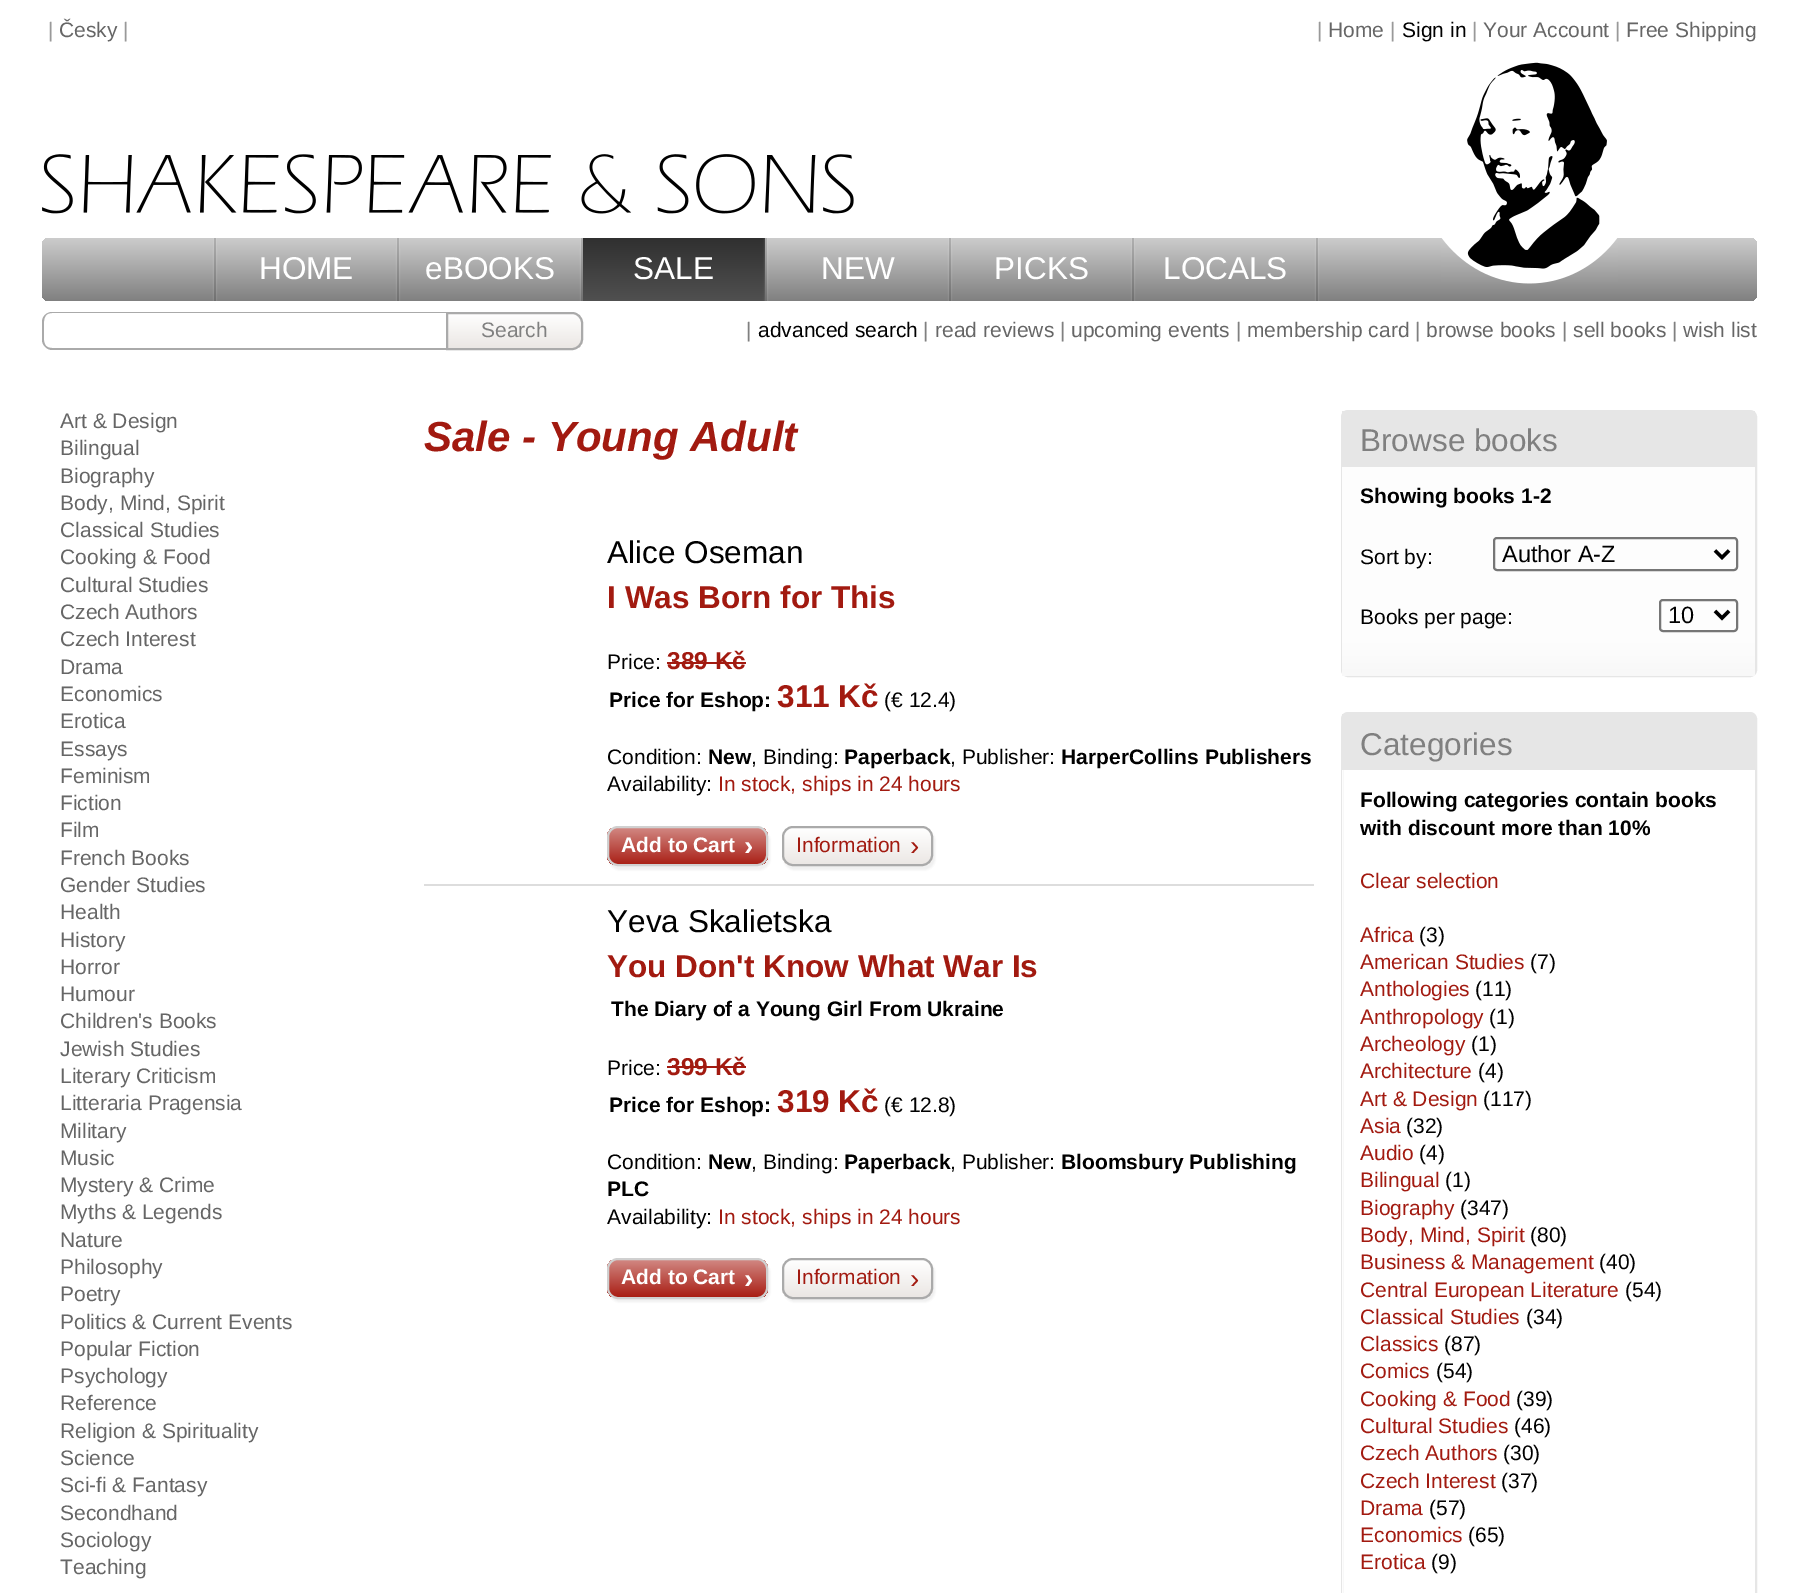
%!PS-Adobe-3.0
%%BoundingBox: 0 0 1799 1593
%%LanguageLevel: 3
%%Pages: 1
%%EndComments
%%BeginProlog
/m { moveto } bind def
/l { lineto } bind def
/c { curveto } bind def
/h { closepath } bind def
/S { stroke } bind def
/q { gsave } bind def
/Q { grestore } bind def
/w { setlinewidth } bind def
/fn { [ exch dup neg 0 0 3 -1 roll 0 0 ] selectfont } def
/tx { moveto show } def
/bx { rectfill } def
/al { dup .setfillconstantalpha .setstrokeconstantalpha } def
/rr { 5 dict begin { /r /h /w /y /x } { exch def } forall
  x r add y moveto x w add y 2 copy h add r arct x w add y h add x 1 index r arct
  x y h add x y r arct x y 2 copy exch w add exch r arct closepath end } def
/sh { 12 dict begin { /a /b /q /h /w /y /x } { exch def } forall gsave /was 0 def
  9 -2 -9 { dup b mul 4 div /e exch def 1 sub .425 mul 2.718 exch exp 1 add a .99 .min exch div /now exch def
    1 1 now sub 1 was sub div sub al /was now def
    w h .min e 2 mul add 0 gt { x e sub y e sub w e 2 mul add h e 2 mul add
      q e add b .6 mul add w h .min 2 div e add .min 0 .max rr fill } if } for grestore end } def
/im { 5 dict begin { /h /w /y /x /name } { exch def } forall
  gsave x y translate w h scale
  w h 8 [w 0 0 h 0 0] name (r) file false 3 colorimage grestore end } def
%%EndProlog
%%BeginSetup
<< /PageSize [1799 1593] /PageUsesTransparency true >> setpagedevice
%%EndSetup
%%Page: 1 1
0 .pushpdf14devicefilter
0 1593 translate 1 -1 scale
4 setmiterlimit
1 setgray
0 0 1799 1593 bx
/LiberationSans-Regular 21 fn
0.6 setgray
(|) 48 37 tx
0.4 setgray
(Česky) 59 37 tx
0.6 setgray
(|) 123 37 tx
(|) 1317 37 tx
0.4 setgray
(Home) 1328 37 tx
0.6 setgray
(|) 1390 37 tx
0 setgray
(Sign in) 1402 37 tx
0.6 setgray
(|) 1472 37 tx
0.4 setgray
(Your Account) 1483 37 tx
0.6 setgray
(|) 1615 37 tx
0.4 setgray
(Free Shipping) 1626 37 tx
(image0.raw) 42 154 812 60 im
q 42 238 1715 63 7 rr clip newpath
<< /ShadingType 2 /ColorSpace /DeviceRGB /Coords [900 238 900 301] /Extend [true true] /Function << /FunctionType 2 /Domain [0 1] /C0 [0.8 0.8 0.8] /C1 [0.502 0.502 0.502] /N 1 >> >> shfill Q
(image1.raw) 1441 62 177 222 im
1 setgray
214 238 2 63 0 1 0.25 sh
q 214 238 m 216 238 l 216 301 l 214 301 l h clip newpath
<< /ShadingType 2 /ColorSpace /DeviceRGB /Coords [214 238 214 301] /Extend [true true] /Function << /FunctionType 2 /Domain [0 1] /C0 [0.69 0.69 0.69] /C1 [0.439 0.439 0.439] /N 1 >> >> shfill Q
/LiberationSans-Regular 31.5 fn
(HOME) 259 279 tx
397 238 2 63 0 1 0.25 sh
q 397 238 m 399 238 l 399 301 l 397 301 l h clip newpath
<< /ShadingType 2 /ColorSpace /DeviceRGB /Coords [398 238 398 301] /Extend [true true] /Function << /FunctionType 2 /Domain [0 1] /C0 [0.69 0.69 0.69] /C1 [0.439 0.439 0.439] /N 1 >> >> shfill Q
(eBOOKS) 425 279 tx
581 238 2 63 0 1 0.25 sh
q 581 238 m 583 238 l 583 301 l 581 301 l h clip newpath
<< /ShadingType 2 /ColorSpace /DeviceRGB /Coords [582 238 582 301] /Extend [true true] /Function << /FunctionType 2 /Domain [0 1] /C0 [0.69 0.69 0.69] /C1 [0.439 0.439 0.439] /N 1 >> >> shfill Q
q 583 238 m 765 238 l 765 301 l 583 301 l h clip newpath
<< /ShadingType 2 /ColorSpace /DeviceRGB /Coords [674 238 674 301] /Extend [true true] /Function << /FunctionType 2 /Domain [0 1] /C0 [0.188 0.188 0.188] /C1 [0.314 0.314 0.314] /N 1 >> >> shfill Q
(SALE) 633 279 tx
765 238 2 63 0 1 0.25 sh
q 765 238 m 767 238 l 767 301 l 765 301 l h clip newpath
<< /ShadingType 2 /ColorSpace /DeviceRGB /Coords [766 238 766 301] /Extend [true true] /Function << /FunctionType 2 /Domain [0 1] /C0 [0.69 0.69 0.69] /C1 [0.439 0.439 0.439] /N 1 >> >> shfill Q
(NEW) 821 279 tx
949 238 2 63 0 1 0.25 sh
q 949 238 m 951 238 l 951 301 l 949 301 l h clip newpath
<< /ShadingType 2 /ColorSpace /DeviceRGB /Coords [949 238 949 301] /Extend [true true] /Function << /FunctionType 2 /Domain [0 1] /C0 [0.69 0.69 0.69] /C1 [0.439 0.439 0.439] /N 1 >> >> shfill Q
(PICKS) 994 279 tx
1132 238 2 63 0 1 0.25 sh
q 1132 238 m 1134 238 l 1134 301 l 1132 301 l h clip newpath
<< /ShadingType 2 /ColorSpace /DeviceRGB /Coords [1133 238 1133 301] /Extend [true true] /Function << /FunctionType 2 /Domain [0 1] /C0 [0.69 0.69 0.69] /C1 [0.439 0.439 0.439] /N 1 >> >> shfill Q
(LOCALS) 1163 279 tx
1316 238 2 63 0 1 0.25 sh
q 1316 238 m 1318 238 l 1318 301 l 1316 301 l h clip newpath
<< /ShadingType 2 /ColorSpace /DeviceRGB /Coords [1317 238 1317 301] /Extend [true true] /Function << /FunctionType 2 /Domain [0 1] /C0 [0.69 0.69 0.69] /C1 [0.439 0.439 0.439] /N 1 >> >> shfill Q
0.667 setgray
52 312 m 446 312 l 446 350 l 52 350 l 47 350 42 345 42 340 c 42 322 l 42 316 47 312 52 312 c h 52 313 m 446 313 l 446 348 l 52 348 l 42 348 44 338 44 331 c 44 324 42 313 52 313 c h eofill
q
446 312 m 572 312 l 578 312 583 317 583 323 c 583 339 l 583 345 578 350 572 350 c 446 350 l h clip newpath
q 448 313 m 583 313 l 583 348 l 448 348 l h clip newpath
<< /ShadingType 2 /ColorSpace /DeviceRGB /Coords [515 313 515 348] /Extend [true true] /Function << /FunctionType 2 /Domain [0 1] /C0 [1 1 1] /C1 [0.922 0.906 0.894] /N 1 >> >> shfill Q
Q
2 w
447 313 m 572 313 l 577.5 313 582 317.5 582 323 c 582 339 l 582 344.5 577.5 349 572 349 c 447 349 l h S
/LiberationSans-Regular 21 fn
0.502 setgray
(Search) 481 337 tx
(|) 746 337 tx
0 setgray
(advanced search) 758 337 tx
0.502 setgray
(|) 923 337 tx
0.4 setgray
(read reviews) 935 337 tx
0.502 setgray
(|) 1060 337 tx
0.4 setgray
(upcoming events) 1071 337 tx
0.502 setgray
(|) 1236 337 tx
0.4 setgray
(membership card) 1247 337 tx
0.502 setgray
(|) 1415 337 tx
0.4 setgray
(browse books) 1426 337 tx
0.502 setgray
(|) 1562 337 tx
0.4 setgray
(sell books) 1573 337 tx
0.502 setgray
(|) 1672 337 tx
0.4 setgray
(wish list) 1683 337 tx
(Art & Design) 60 428 tx
(Bilingual) 60 455 tx
(Biography) 60 483 tx
(Body, Mind, Spirit) 60 510 tx
(Classical Studies) 60 537 tx
(Cooking & Food) 60 564 tx
(Cultural Studies) 60 592 tx
(Czech Authors) 60 619 tx
(Czech Interest) 60 646 tx
(Drama) 60 674 tx
(Economics) 60 701 tx
(Erotica) 60 728 tx
(Essays) 60 756 tx
(Feminism) 60 783 tx
(Fiction) 60 810 tx
(Film) 60 837 tx
(French Books) 60 865 tx
(Gender Studies) 60 892 tx
(Health) 60 919 tx
(History) 60 947 tx
(Horror) 60 974 tx
(Humour) 60 1001 tx
(Children's Books) 60 1028 tx
(Jewish Studies) 60 1056 tx
(Literary Criticism) 60 1083 tx
(Litteraria Pragensia) 60 1110 tx
(Military) 60 1138 tx
(Music) 60 1165 tx
(Mystery & Crime) 60 1192 tx
(Myths & Legends) 60 1219 tx
(Nature) 60 1247 tx
(Philosophy) 60 1274 tx
(Poetry) 60 1301 tx
(Politics & Current Events) 60 1329 tx
(Popular Fiction) 60 1356 tx
(Psychology) 60 1383 tx
(Reference) 60 1410 tx
(Religion & Spirituality) 60 1438 tx
(Science) 60 1465 tx
(Sci-fi & Fantasy) 60 1492 tx
(Secondhand) 60 1520 tx
(Sociology) 60 1547 tx
(Teaching) 60 1574 tx
/LiberationSans-BoldItalic 42 fn
0.635 0.102 0.063 setrgbcolor
(Sale - Young Adult) 424 451 tx
0.902 setgray
1342 411 414 265 6 rr S
1342 411 413 56 bx
/LiberationSans-Regular 31.5 fn
0.502 setgray
(Browse books) 1360 451 tx
q 1342 467 m 1755 467 l 1755 676 l 1342 676 l h clip newpath
<< /ShadingType 2 /ColorSpace /DeviceRGB /Coords [1549 676 1549 467] /Extend [true true] /Function << /FunctionType 3 /Domain [0 1] /Functions [<< /FunctionType 2 /Domain [0 1] /C0 [0.973 0.973 0.973] /C1 [0.992 0.992 0.992] /N 1 >> << /FunctionType 2 /Domain [0 1] /C0 [0.992 0.992 0.992] /C1 [0.992 0.992 0.992] /N 1 >>] /Bounds [0.17] /Encode [0 1 0 1] >> >> shfill Q
/LiberationSans-Bold 21 fn
0 setgray
(Showing books 1-2) 1360 503 tx
/LiberationSans-Regular 21 fn
(Sort by:) 1360 564 tx
0.463 setgray
1494 538 243 32 3 rr S
0 setgray
3.5 w
1715 550.5 m 1722 557.5 l 1729 550.5 l S
/LiberationSans-Regular 23.5 fn
(Author A-Z) 1502 562 tx
/LiberationSans-Regular 21 fn
(Books per page:) 1360 624 tx
0.463 setgray
2 w
1660 600 77 31 3 rr S
0 setgray
3.5 w
1715 611 m 1722 618 l 1729 611 l S
/LiberationSans-Regular 23.5 fn
(10) 1668 623 tx
0.902 setgray
2 w
1342 713 414 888 6 rr S
1342 714 413 56 bx
/LiberationSans-Regular 31.5 fn
0.502 setgray
(Categories) 1360 755 tx
0.992 setgray
1342 770 1 823 bx
/LiberationSans-Bold 21 fn
0 setgray
(Following categories contain books) 1360 807 tx
(with discount more than 10%) 1360 835 tx
/LiberationSans-Regular 21 fn
0.635 0.102 0.063 setrgbcolor
(Clear selection) 1360 888 tx
(Africa) 1360 942 tx
0 setgray
(\(3\)) 1419 942 tx
0.635 0.102 0.063 setrgbcolor
(American Studies) 1360 969 tx
0 setgray
(\(7\)) 1530 969 tx
0.635 0.102 0.063 setrgbcolor
(Anthologies) 1360 996 tx
0 setgray
(\(11\)) 1475 996 tx
0.635 0.102 0.063 setrgbcolor
(Anthropology) 1360 1024 tx
0 setgray
(\(1\)) 1489 1024 tx
0.635 0.102 0.063 setrgbcolor
(Archeology) 1360 1051 tx
0 setgray
(\(1\)) 1471 1051 tx
0.635 0.102 0.063 setrgbcolor
(Architecture) 1360 1078 tx
0 setgray
(\(4\)) 1478 1078 tx
0.635 0.102 0.063 setrgbcolor
(Art & Design) 1360 1106 tx
0 setgray
(\(117\)) 1483 1106 tx
0.635 0.102 0.063 setrgbcolor
(Asia) 1360 1133 tx
0 setgray
(\(32\)) 1406 1133 tx
0.635 0.102 0.063 setrgbcolor
(Audio) 1360 1160 tx
0 setgray
(\(4\)) 1419 1160 tx
0.635 0.102 0.063 setrgbcolor
(Bilingual) 1360 1187 tx
0 setgray
(\(1\)) 1445 1187 tx
0.635 0.102 0.063 setrgbcolor
(Biography) 1360 1215 tx
0 setgray
(\(347\)) 1460 1215 tx
0.635 0.102 0.063 setrgbcolor
(Body, Mind, Spirit) 1360 1242 tx
0 setgray
(\(80\)) 1530 1242 tx
0.635 0.102 0.063 setrgbcolor
(Business & Management) 1360 1269 tx
0 setgray
(\(40\)) 1599 1269 tx
0.635 0.102 0.063 setrgbcolor
(Central European Literature) 1360 1297 tx
0 setgray
(\(54\)) 1625 1297 tx
0.635 0.102 0.063 setrgbcolor
(Classical Studies) 1360 1324 tx
0 setgray
(\(34\)) 1526 1324 tx
0.635 0.102 0.063 setrgbcolor
(Classics) 1360 1351 tx
0 setgray
(\(87\)) 1444 1351 tx
0.635 0.102 0.063 setrgbcolor
(Comics) 1360 1378 tx
0 setgray
(\(54\)) 1436 1378 tx
0.635 0.102 0.063 setrgbcolor
(Cooking & Food) 1360 1406 tx
0 setgray
(\(39\)) 1516 1406 tx
0.635 0.102 0.063 setrgbcolor
(Cultural Studies) 1360 1433 tx
0 setgray
(\(46\)) 1514 1433 tx
0.635 0.102 0.063 setrgbcolor
(Czech Authors) 1360 1460 tx
0 setgray
(\(30\)) 1503 1460 tx
0.635 0.102 0.063 setrgbcolor
(Czech Interest) 1360 1488 tx
0 setgray
(\(37\)) 1501 1488 tx
0.635 0.102 0.063 setrgbcolor
(Drama) 1360 1515 tx
0 setgray
(\(57\)) 1429 1515 tx
0.635 0.102 0.063 setrgbcolor
(Economics) 1360 1542 tx
0 setgray
(\(65\)) 1468 1542 tx
0.635 0.102 0.063 setrgbcolor
(Erotica) 1360 1569 tx
0 setgray
(\(9\)) 1431 1569 tx
0.867 setgray
424 884 890 2 bx
/LiberationSans-Regular 31.5 fn
0 setgray
(Alice Oseman) 607 563 tx
/LiberationSans-Bold 31.5 fn
0.635 0.102 0.063 setrgbcolor
(I Was Born for This) 607 608 tx
/LiberationSans-Regular 21 fn
0 setgray
(Price:) 607 669 tx
/LiberationSans-Bold 24.5 fn
0.635 0.102 0.063 setrgbcolor
(389 Kč) 667 669 tx
667 662 79 2 bx
/LiberationSans-Bold 21 fn
0 setgray
(Price for Eshop:) 609 707 tx
/LiberationSans-Bold 31.5 fn
0.635 0.102 0.063 setrgbcolor
(311 Kč) 777 707 tx
/LiberationSans-Regular 21 fn
0 setgray
(\(€ 12.4\)) 884 707 tx
(Condition:) 607 764 tx
/LiberationSans-Bold 21 fn
(New) 708 764 tx
/LiberationSans-Regular 21 fn
(, Binding:) 751 764 tx
/LiberationSans-Bold 21 fn
(Paperback) 844 764 tx
/LiberationSans-Regular 21 fn
(, Publisher:) 950 764 tx
/LiberationSans-Bold 21 fn
(HarperCollins Publishers) 1061 764 tx
/LiberationSans-Regular 21 fn
(Availability:) 607 791 tx
0.635 0.102 0.063 setrgbcolor
(In stock, ships in 24 hours) 718 791 tx
0.937 setgray
609 830 161 40 11 1 1 sh
q
607 826 161 40 11 rr clip newpath
q 607 828 m 768 828 l 768 865 l 607 865 l h clip newpath
<< /ShadingType 2 /ColorSpace /DeviceRGB /Coords [688 828 688 865] /Extend [true true] /Function << /FunctionType 2 /Domain [0 1] /C0 [0.82 0.529 0.51] /C1 [0.663 0.118 0.078] /N 1 >> >> shfill Q
Q
0.816 setgray
608 827 159 38 10 rr S
/LiberationSans-Bold 21 fn
1 setgray
(Add to Cart) 621 852 tx
/LiberationSans-Bold 28 fn
(›) 744 855 tx
0.937 setgray
784 830 151 40 11 1 1 sh
q
782 826 151 40 11 rr clip newpath
q 782 828 m 933 828 l 933 865 l 782 865 l h clip newpath
<< /ShadingType 2 /ColorSpace /DeviceRGB /Coords [858 828 858 865] /Extend [true true] /Function << /FunctionType 2 /Domain [0 1] /C0 [1 1 1] /C1 [0.922 0.906 0.894] /N 1 >> >> shfill Q
Q
0.667 setgray
783 827 149 38 10 rr S
/LiberationSans-Regular 21 fn
0.635 0.102 0.063 setrgbcolor
(Information) 796 852 tx
/LiberationSans-Regular 28 fn
(›) 910 855 tx
/LiberationSans-Regular 31.5 fn
0 setgray
(Yeva Skalietska) 607 932 tx
/LiberationSans-Bold 31.5 fn
0.635 0.102 0.063 setrgbcolor
(You Don't Know What War Is) 607 977 tx
/LiberationSans-Bold 21 fn
0 setgray
(The Diary of a Young Girl From Ukraine) 611 1016 tx
/LiberationSans-Regular 21 fn
(Price:) 607 1075 tx
/LiberationSans-Bold 24.5 fn
0.635 0.102 0.063 setrgbcolor
(399 Kč) 667 1075 tx
667 1066 79 2 bx
/LiberationSans-Bold 21 fn
0 setgray
(Price for Eshop:) 609 1112 tx
/LiberationSans-Bold 31.5 fn
0.635 0.102 0.063 setrgbcolor
(319 Kč) 777 1112 tx
/LiberationSans-Regular 21 fn
0 setgray
(\(€ 12.8\)) 884 1112 tx
(Condition:) 607 1169 tx
/LiberationSans-Bold 21 fn
(New) 708 1169 tx
/LiberationSans-Regular 21 fn
(, Binding:) 751 1169 tx
/LiberationSans-Bold 21 fn
(Paperback) 844 1169 tx
/LiberationSans-Regular 21 fn
(, Publisher:) 950 1169 tx
/LiberationSans-Bold 21 fn
(Bloomsbury Publishing) 1061 1169 tx
(PLC) 607 1196 tx
/LiberationSans-Regular 21 fn
(Availability:) 607 1224 tx
0.635 0.102 0.063 setrgbcolor
(In stock, ships in 24 hours) 718 1224 tx
0.937 setgray
609 1262 161 40 11 1 1 sh
q
607 1258 161 41 11 rr clip newpath
q 607 1260 m 768 1260 l 768 1297 l 607 1297 l h clip newpath
<< /ShadingType 2 /ColorSpace /DeviceRGB /Coords [688 1260 688 1297] /Extend [true true] /Function << /FunctionType 2 /Domain [0 1] /C0 [0.82 0.529 0.51] /C1 [0.663 0.118 0.078] /N 1 >> >> shfill Q
Q
0.816 setgray
608 1259 159 39 10 rr S
/LiberationSans-Bold 21 fn
1 setgray
(Add to Cart) 621 1284 tx
/LiberationSans-Bold 28 fn
(›) 744 1288 tx
0.937 setgray
784 1262 151 40 11 1 1 sh
q
782 1258 151 41 11 rr clip newpath
q 782 1260 m 933 1260 l 933 1297 l 782 1297 l h clip newpath
<< /ShadingType 2 /ColorSpace /DeviceRGB /Coords [858 1260 858 1297] /Extend [true true] /Function << /FunctionType 2 /Domain [0 1] /C0 [1 1 1] /C1 [0.922 0.906 0.894] /N 1 >> >> shfill Q
Q
0.667 setgray
783 1259 149 39 10 rr S
/LiberationSans-Regular 21 fn
0.635 0.102 0.063 setrgbcolor
(Information) 796 1284 tx
/LiberationSans-Regular 28 fn
(›) 910 1288 tx
.poppdf14devicefilter showpage
%%EOF
